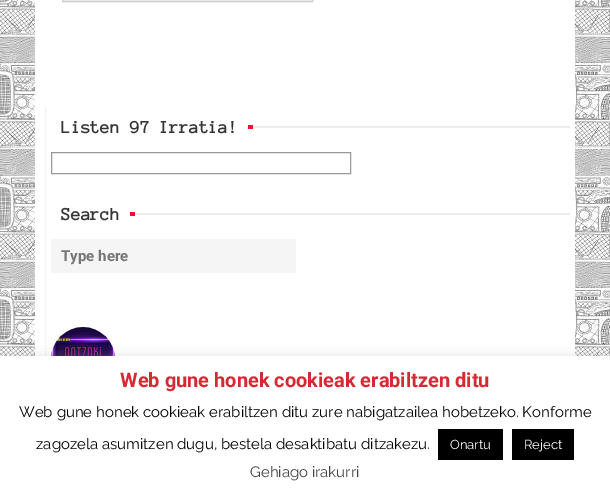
%!PS-Adobe-3.0
%%BoundingBox: 0 0 610 495
%%LanguageLevel: 3
%%Pages: 1
%%EndComments
%%BeginProlog
/m { moveto } bind def
/l { lineto } bind def
/h { closepath } bind def
/f { fill } bind def
/S { stroke } bind def
/q { gsave } bind def
/Q { grestore } bind def
/fn { [ exch dup neg 0 0 3 -1 roll 0 0 ] selectfont } def
/tx { moveto show } def
/bx { rectfill } def
/al { dup .setfillconstantalpha .setstrokeconstantalpha } def
/rr { 5 dict begin { /r /h /w /y /x } { exch def } forall
  x r add y moveto x w add y 2 copy h add r arct x w add y h add x 1 index r arct
  x y h add x y r arct x y 2 copy exch w add exch r arct closepath end } def
/sh { 12 dict begin { /a /b /q /h /w /y /x } { exch def } forall gsave /was 0 def
  9 -2 -9 { dup b mul 4 div /e exch def 1 sub .425 mul 2.718 exch exp 1 add a .99 .min exch div /now exch def
    1 1 now sub 1 was sub div sub al /was now def
    w h .min e 2 mul add 0 gt { x e sub y e sub w e 2 mul add h e 2 mul add
      q e add b .6 mul add w h .min 2 div e add .min 0 .max rr fill } if } for grestore end } def
/im { 5 dict begin { /h /w /y /x /name } { exch def } forall
  gsave x y translate w h scale
  w h 8 [w 0 0 h 0 0] name (r) file false 3 colorimage grestore end } def
%%EndProlog
%%BeginSetup
<< /PageSize [610 495] /PageUsesTransparency true >> setpagedevice
%%EndSetup
%%Page: 1 1
0 .pushpdf14devicefilter
0 495 translate 1 -1 scale
4 setmiterlimit
1 setgray
0 0 610 495 bx
(image0.raw) 0 0 610 356 im
35 0 540 356 bx
0.961 setgray
62.5 -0.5 m 312.5 -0.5 l 312.5 1.5 l 62.5 1.5 l h q f Q
0.8 setgray
S
0.902 setgray
[1 1] 0 setdash
45.5 107 m 45.5 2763 l S
/AnonymousPro-Bold 18 fn
0.2 setgray
(Listen 97 Irratia!) 61 133 tx
0.965 0.047 0.176 setrgbcolor
248 125 5 4 bx
0.925 setgray
253 126 317 2 bx
0.6 setgray
[] 0 setdash
51.5 152.5 299 21 rectstroke
0.2 setgray
(Search) 61 220 tx
0.965 0.047 0.176 setrgbcolor
130 212 5 4 bx
0.925 setgray
135 213 435 2 bx
0.961 setgray
51 239 245 34 3 rr f
/Roboto-Bold 15 fn
0.459 setgray
(Type here) 61 261 tx
(image1.raw) 51 327 64 29 im
0.675 0.671 0.671 setrgbcolor
0 355 610 139 0 5 0.3 sh
1 setgray
0 356 610 139 bx
/Roboto-Bold 20 fn
0.835 0.165 0.2 setrgbcolor
(Web gune honek cookieak erabiltzen ditu) 120 387 tx
/Raleway-Thin 15 fn
0 setgray
(Web gune honek cookieak erabiltzen ditu zure nabigatzailea hobetzeko. Konforme) 19 417 tx
(zagozela asumitzen dugu, bestela desaktibatu ditzakezu.) 36 449 tx
438 429 65 31 bx
/Raleway-Thin 13 fn
1 setgray
(Onartu) 450 449 tx
0 setgray
512 429 62 31 bx
1 setgray
(Reject) 524 449 tx
/Raleway-Thin 15 fn
0.267 setgray
(Gehiago irakurri) 250 477 tx
.poppdf14devicefilter showpage
%%EOF
